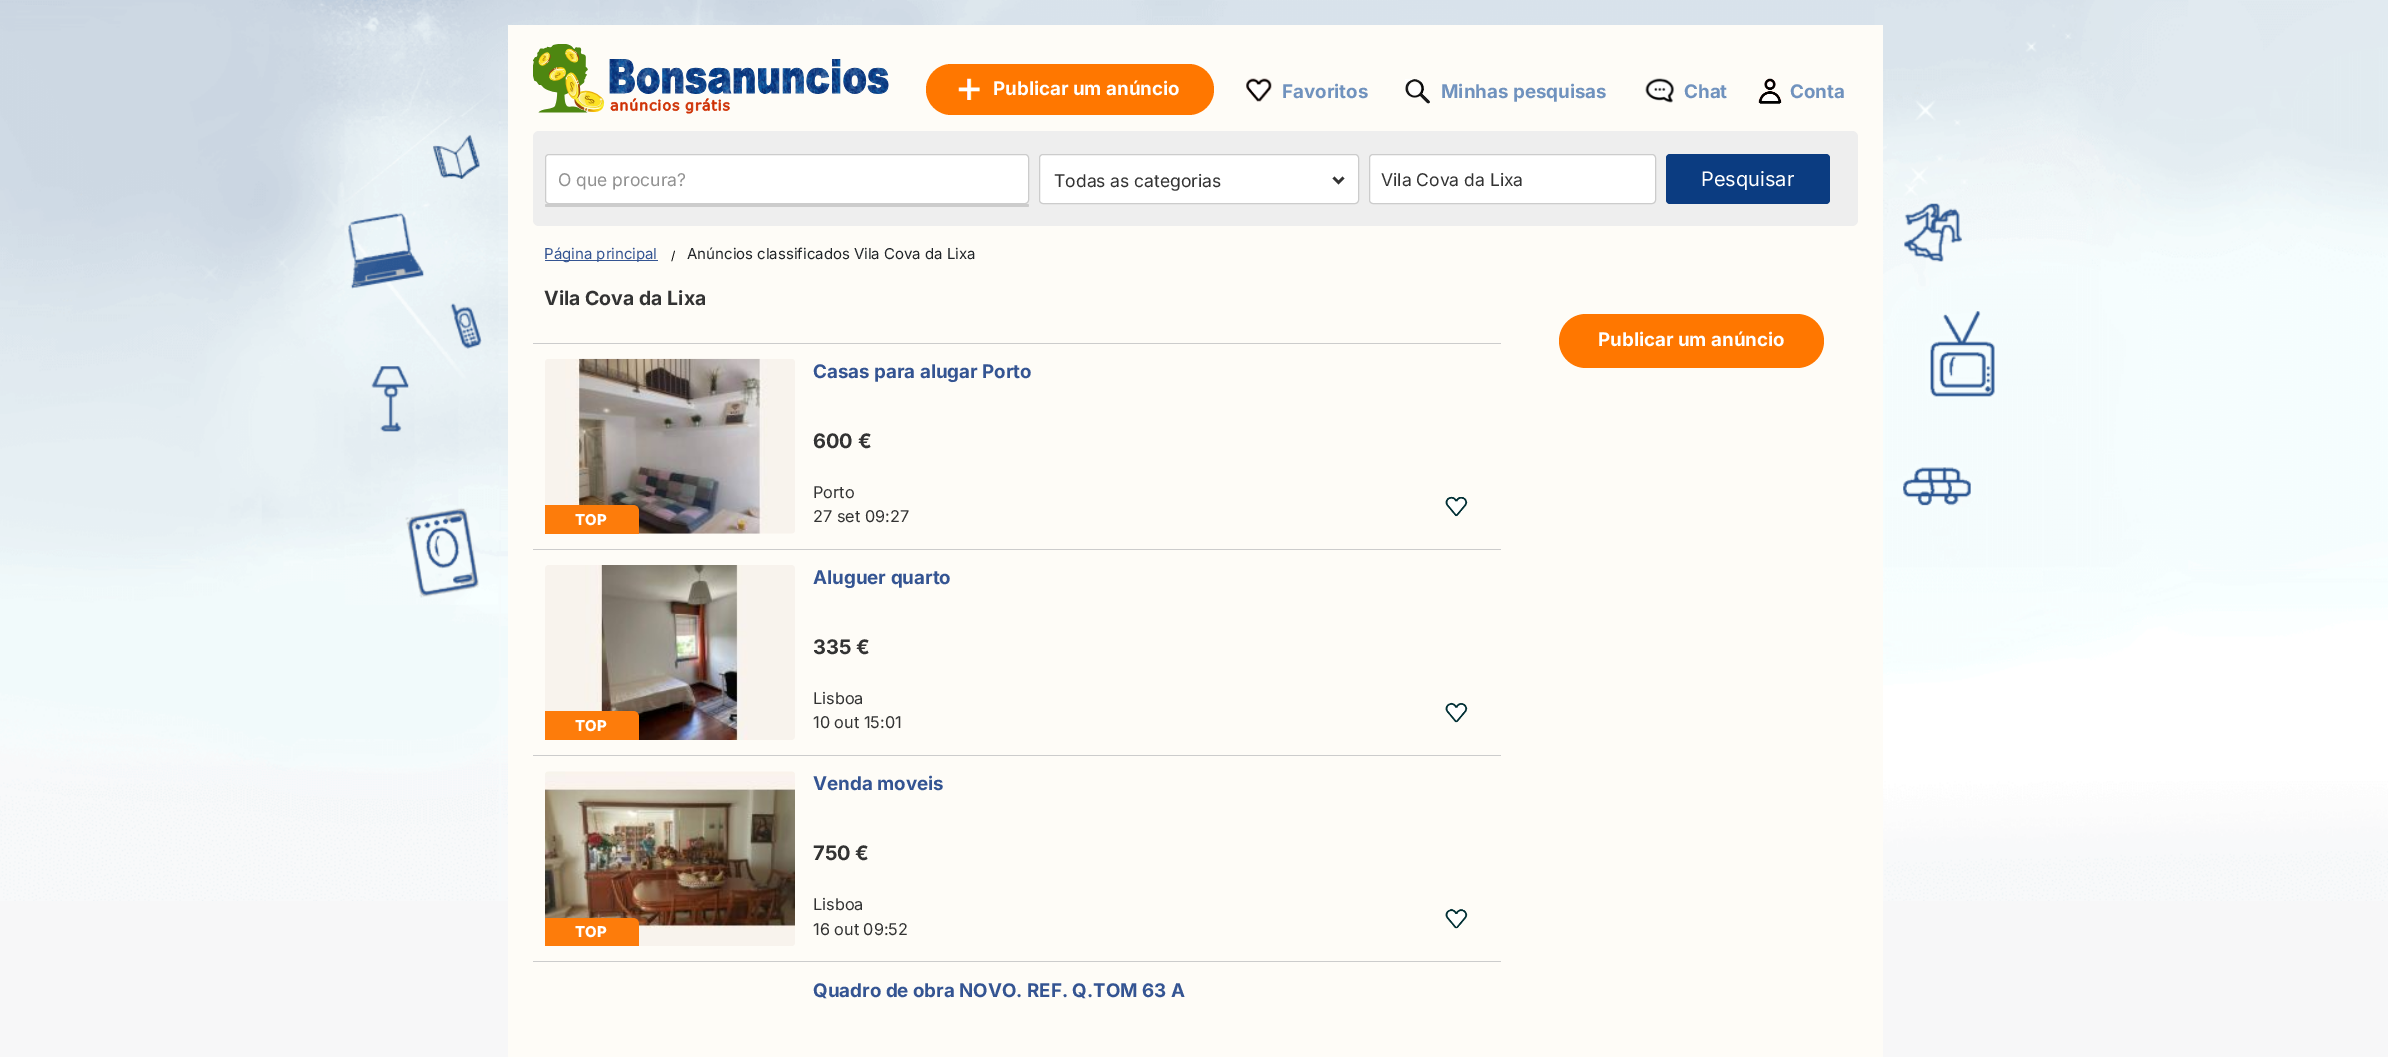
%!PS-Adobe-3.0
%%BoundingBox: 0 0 2388 1057
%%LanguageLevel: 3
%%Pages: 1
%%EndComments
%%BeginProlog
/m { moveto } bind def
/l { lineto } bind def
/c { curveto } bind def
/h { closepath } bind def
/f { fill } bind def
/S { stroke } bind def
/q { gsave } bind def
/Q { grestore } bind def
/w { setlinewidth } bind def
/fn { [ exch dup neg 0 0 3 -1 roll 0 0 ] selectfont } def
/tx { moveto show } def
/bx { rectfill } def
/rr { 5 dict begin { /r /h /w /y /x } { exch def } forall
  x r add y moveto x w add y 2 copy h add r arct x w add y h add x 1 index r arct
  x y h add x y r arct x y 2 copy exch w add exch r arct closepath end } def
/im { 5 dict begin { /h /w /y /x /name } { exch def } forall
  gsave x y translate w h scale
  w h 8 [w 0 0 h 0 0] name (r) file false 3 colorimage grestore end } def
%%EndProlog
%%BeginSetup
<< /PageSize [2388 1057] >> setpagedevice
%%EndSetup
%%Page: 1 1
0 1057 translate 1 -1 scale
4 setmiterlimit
0.969 0.969 0.973 setrgbcolor
0 0 2388 1057 bx
(image0.raw) 0 0 2388 901 im
0.996 0.988 0.969 setrgbcolor
508 25 1375 1032 bx
(image1.raw) 533 44 356 70 im
1 0.467 0 setrgbcolor
926 64 288 51 25.5 rr f
(image2.raw) 958 78 22 22 im
/Inter-Bold 18.75 fn
1 setgray
(Publicar um anúncio) 993 95 tx
(image3.raw) 1246 78 26 24 im
0.439 0.573 0.745 setrgbcolor
(Favoritos) 1282 98 tx
(image4.raw) 1405 79 25 25 im
(Minhas pesquisas) 1441 98 tx
(image5.raw) 1645 78 30 25 im
(Chat) 1684 98 tx
(image6.raw) 1758 78 24 26 im
(Conta) 1790 98 tx
0.933 setgray
533 131 1325 95 6 rr f
1 setgray
545.5 154.5 483 49 3.5 rr q f Q
0.8 setgray
S
/Inter-Regular 17.5 fn
0.569 setgray
(O que procura?) 558 186 tx
0.8 setgray
545 204 484 3 1.5 rr f
1 setgray
1039.5 154.5 319 49 3.5 rr q f Q
0.8 setgray
S
0.2 setgray
2.5 w
1333.5 177.5 m 1338.5 182.5 l 1343.5 177.5 l S
(Todas as categorias) 1054 187 tx
1 setgray
1369.5 154.5 286 49 3.5 rr q f Q
0.8 setgray
1 w
S
0.2 setgray
(Vila Cova da Lixa) 1381 186 tx
0.043 0.235 0.506 setrgbcolor
1666 154 164 50 4 rr f
/Inter-Regular 20 fn
1 setgray
(Pesquisar) 1701 186 tx
0.204 0.329 0.573 setrgbcolor
545 260 113 1 bx
/Inter-Regular 15 fn
(Página principal) 544 259 tx
/Inter-Regular 12 fn
0 setgray
(/) 671 260 tx
/Inter-Regular 15 fn
0.129 0.145 0.161 setrgbcolor
(Anúncios classificados Vila Cova da Lixa) 687 259 tx
/Inter-Bold 19.5 fn
0.2 setgray
(Vila Cova da Lixa) 544 305 tx
0.8 setgray
533 343 968 1 bx
533 549 968 1 bx
(image7.raw) 545 358 250 176 im
0.992 0.486 0.043 setrgbcolor
545 505 m 633 505 l 636.5 505 639 507.5 639 511 c 639 534 l 545 534 l h f
/Inter-ExtraBold 15 fn
1 setgray
(TOP) 575 525 tx
/Inter-Bold 18.75 fn
0.204 0.329 0.573 setrgbcolor
(Casas para alugar Porto) 813 378 tx
/Inter-Bold 20 fn
0.2 setgray
(600 €) 813 448 tx
/Inter-Regular 16.25 fn
(Porto) 813 498 tx
(27 set 09:27) 813 522 tx
(image8.raw) 1445 496 23 21 im
0.8 setgray
533 755 968 1 bx
(image9.raw) 545 565 250 175 im
0.992 0.486 0.043 setrgbcolor
545 711 m 633 711 l 636.5 711 639 713.5 639 717 c 639 740 l 545 740 l h f
/Inter-ExtraBold 15 fn
1 setgray
(TOP) 575 731 tx
/Inter-Bold 18.75 fn
0.204 0.329 0.573 setrgbcolor
(Aluguer quarto) 813 584 tx
/Inter-Bold 20 fn
0.2 setgray
(335 €) 813 654 tx
/Inter-Regular 16.25 fn
(Lisboa) 813 704 tx
(10 out 15:01) 813 728 tx
(image10.raw) 1445 702 23 21 im
0.8 setgray
533 961 968 1 bx
(image11.raw) 545 771 250 175 im
0.992 0.486 0.043 setrgbcolor
545 918 m 633 918 l 636.5 918 639 920.5 639 924 c 639 946 l 545 946 l h f
/Inter-ExtraBold 15 fn
1 setgray
(TOP) 575 937 tx
/Inter-Bold 18.75 fn
0.204 0.329 0.573 setrgbcolor
(Venda moveis) 813 790 tx
/Inter-Bold 20 fn
0.2 setgray
(750 €) 813 860 tx
/Inter-Regular 16.25 fn
(Lisboa) 813 910 tx
(16 out 09:52) 813 935 tx
(image12.raw) 1445 908 23 21 im
/Inter-Bold 18.75 fn
0.204 0.329 0.573 setrgbcolor
(Quadro de obra NOVO. REF. Q.TOM 63 A) 813 997 tx
1 0.467 0 setrgbcolor
1559 314 265 54 27 rr f
1 setgray
(Publicar um anúncio) 1598 346 tx
showpage
%%EOF
